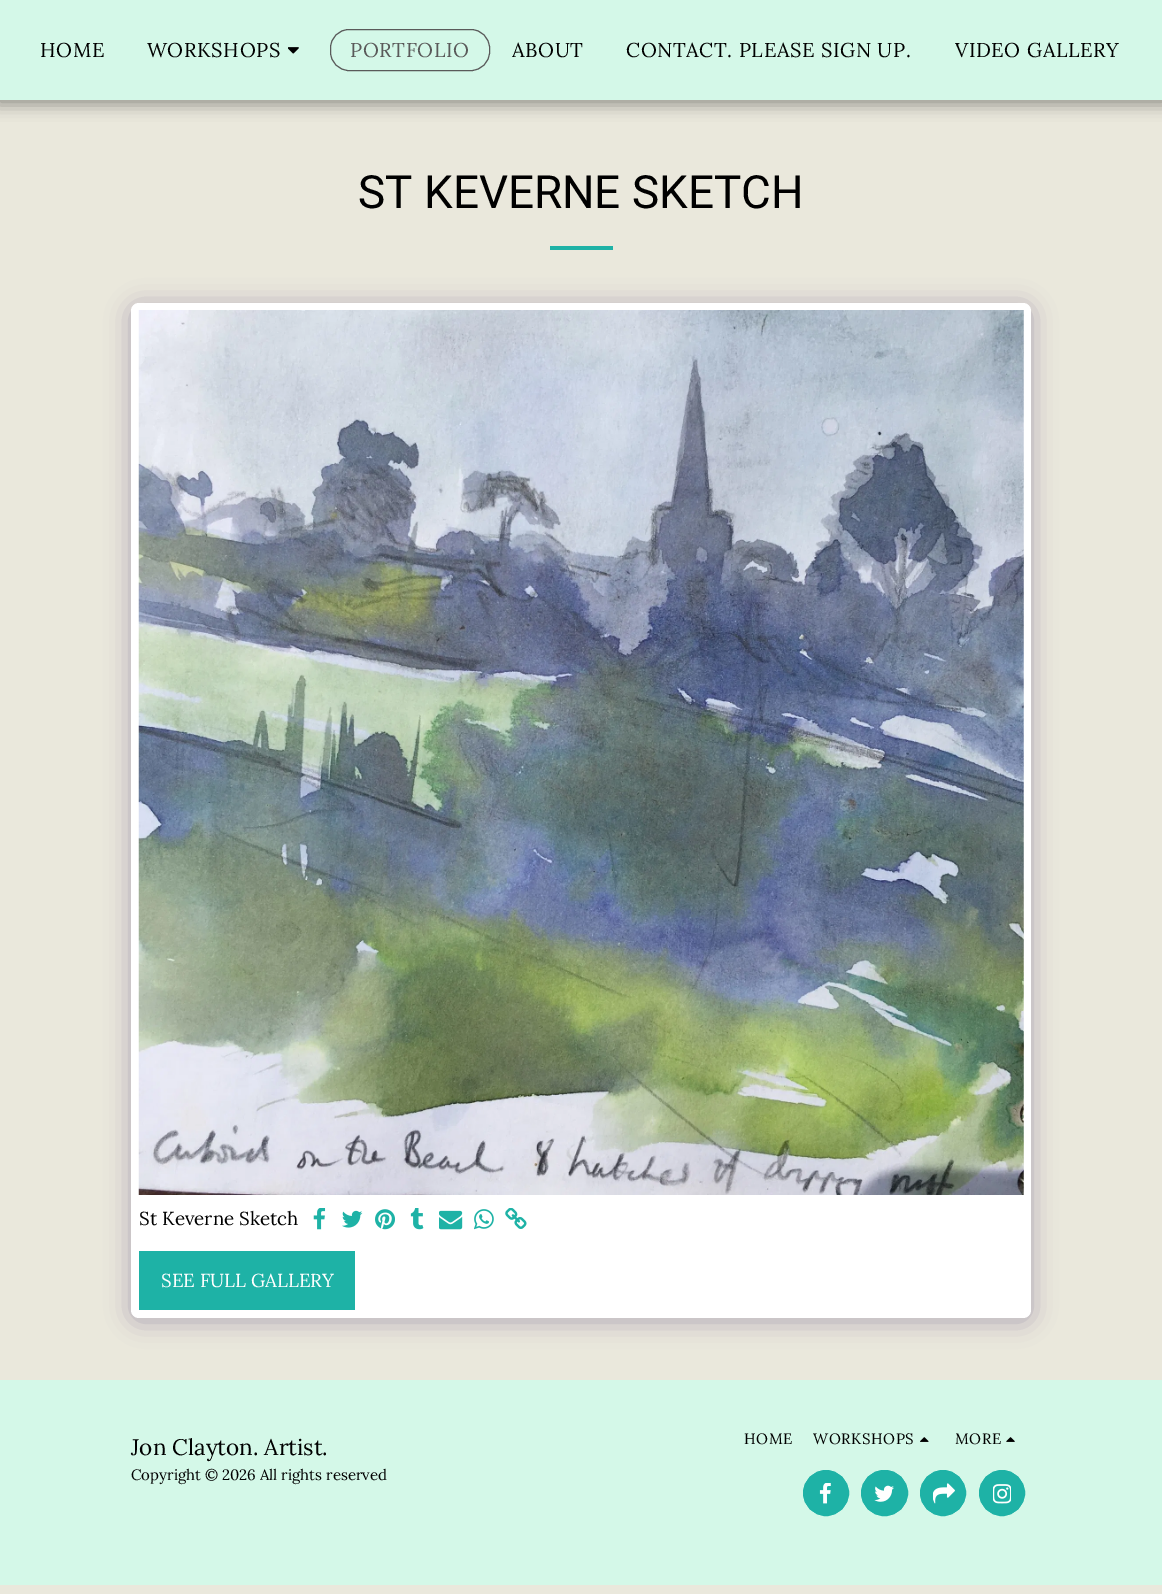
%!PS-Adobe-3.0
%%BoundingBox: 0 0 1162 1594
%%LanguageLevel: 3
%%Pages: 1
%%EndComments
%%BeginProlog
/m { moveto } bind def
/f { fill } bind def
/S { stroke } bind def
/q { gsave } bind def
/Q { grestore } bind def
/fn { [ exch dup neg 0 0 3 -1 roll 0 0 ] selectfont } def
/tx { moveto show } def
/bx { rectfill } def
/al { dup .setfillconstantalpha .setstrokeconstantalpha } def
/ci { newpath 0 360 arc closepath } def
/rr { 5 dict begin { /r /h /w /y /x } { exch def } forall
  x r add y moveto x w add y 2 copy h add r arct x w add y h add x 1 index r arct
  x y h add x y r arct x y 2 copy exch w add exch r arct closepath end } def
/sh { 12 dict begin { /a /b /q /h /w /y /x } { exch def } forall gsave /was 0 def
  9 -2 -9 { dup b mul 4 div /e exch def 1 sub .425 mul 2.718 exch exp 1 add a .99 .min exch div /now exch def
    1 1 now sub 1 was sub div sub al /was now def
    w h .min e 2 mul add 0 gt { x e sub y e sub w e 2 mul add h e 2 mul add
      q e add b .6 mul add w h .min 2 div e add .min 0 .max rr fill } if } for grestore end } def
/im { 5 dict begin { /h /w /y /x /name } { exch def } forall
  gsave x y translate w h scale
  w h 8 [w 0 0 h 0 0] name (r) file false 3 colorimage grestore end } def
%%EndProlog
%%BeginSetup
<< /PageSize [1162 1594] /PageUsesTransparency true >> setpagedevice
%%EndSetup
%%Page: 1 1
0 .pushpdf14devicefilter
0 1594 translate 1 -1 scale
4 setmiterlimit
0.918 0.91 0.863 setrgbcolor
0 0 1162 1594 bx
0 setgray
-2 0 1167 105 0 7.5 0.35 sh
0.831 0.973 0.91 setrgbcolor
0 0 1162 100 bx
/Lora-Regular 20 fn
0 setgray
40 57 m 0.6 0 (HOME) ashow
147 57 m 0.6 0 (WORKSHOPS) ashow
(image0.raw) 288 47 11 7 im
0.353 setgray
330.5 29.5 159 41 18.5 rr S
350 57 m 0.6 0 (PORTFOLIO) ashow
0 setgray
512 57 m 0.6 0 (ABOUT) ashow
626 57 m 0.6 0 (CONTACT. PLEASE SIGN UP.) ashow
955 57 m 0.6 0 (VIDEO GALLERY) ashow
/Roboto-Regular 45.75 fn
(ST KEVERNE SKETCH) 358 208 tx
0.118 0.698 0.651 setrgbcolor
550 246 63 4 bx
0.302 0.247 0.478 setrgbcolor
131 306 900 1015 8 12.5 0.4 sh
1 setgray
131 303 900 1015 8 rr f
(image1.raw) 138 310 886 885 im
/Lora-Regular 18.75 fn
0 setgray
(St Keverne Sketch) 139 1225 tx
(image2.raw) 313 1208 13 22 im
(image3.raw) 342 1210 21 18 im
(image4.raw) 375 1209 20 21 im
(image5.raw) 410 1208 14 22 im
(image6.raw) 439 1210 24 20 im
(image7.raw) 474 1209 20 21 im
(image8.raw) 505 1208 22 21 im
0.118 0.698 0.651 setrgbcolor
139 1251 216 59 bx
1 setgray
(SEE FULL GALLERY) 161 1287 tx
0.831 0.973 0.91 setrgbcolor
0 1380 1162 205 bx
/Lora-Regular 22.5 fn
0 setgray
(Jon Clayton. Artist.) 131 1455 tx
/Lora-Regular 15 fn
(Copyright © 2026 All rights reserved) 131 1480 tx
744 1444 m 0.6 0 (HOME) ashow
813 1444 m 0.6 0 (WORKSHOPS) ashow
(image9.raw) 920 1437 9 5 im
955 1444 m 0.6 0 (MORE) ashow
(image10.raw) 1006 1437 9 5 im
0.118 0.698 0.651 setrgbcolor
826 1493 22.5 ci q f Q
S
(image11.raw) 819 1483 12 21 im
861.5 1470.5 46 45 22.5 rr q f Q
S
(image12.raw) 874 1485 20 17 im
943 1493 22.5 ci q f Q
S
(image13.raw) 933 1483 22 21 im
1002 1493 22.5 ci q f Q
S
(image14.raw) 993 1484 18 20 im
.poppdf14devicefilter showpage
%%EOF
